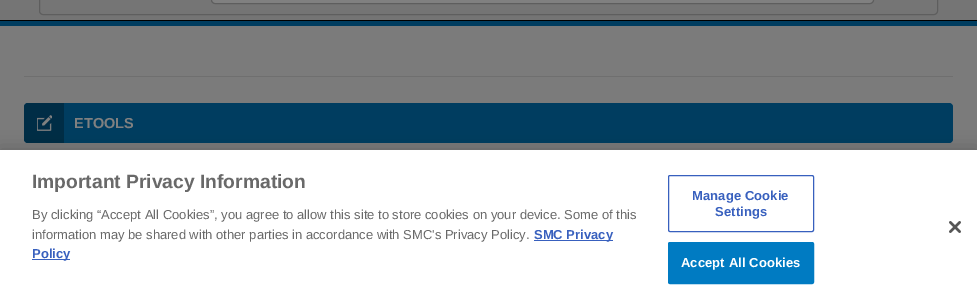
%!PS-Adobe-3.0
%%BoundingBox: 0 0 977 304
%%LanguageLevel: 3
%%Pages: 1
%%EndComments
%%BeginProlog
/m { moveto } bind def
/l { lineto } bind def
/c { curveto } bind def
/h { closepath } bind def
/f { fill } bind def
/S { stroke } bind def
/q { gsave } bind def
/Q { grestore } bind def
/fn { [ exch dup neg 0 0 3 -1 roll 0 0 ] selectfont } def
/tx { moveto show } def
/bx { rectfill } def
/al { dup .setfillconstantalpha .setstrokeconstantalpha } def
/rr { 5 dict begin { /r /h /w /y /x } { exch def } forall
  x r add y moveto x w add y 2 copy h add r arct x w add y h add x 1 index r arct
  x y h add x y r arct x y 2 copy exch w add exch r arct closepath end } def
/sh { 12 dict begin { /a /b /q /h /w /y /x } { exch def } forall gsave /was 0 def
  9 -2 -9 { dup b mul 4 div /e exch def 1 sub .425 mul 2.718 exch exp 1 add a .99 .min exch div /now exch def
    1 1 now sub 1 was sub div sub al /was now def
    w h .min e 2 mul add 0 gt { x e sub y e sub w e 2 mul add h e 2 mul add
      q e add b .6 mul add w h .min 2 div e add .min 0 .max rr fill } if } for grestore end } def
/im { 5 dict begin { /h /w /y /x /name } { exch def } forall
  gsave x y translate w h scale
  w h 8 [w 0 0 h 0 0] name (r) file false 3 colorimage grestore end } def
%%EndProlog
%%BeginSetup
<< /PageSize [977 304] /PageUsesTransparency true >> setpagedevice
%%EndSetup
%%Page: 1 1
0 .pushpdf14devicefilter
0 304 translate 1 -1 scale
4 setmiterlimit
1 setgray
0 0 977 304 bx
q 0 0 m 977 0 l 977 20 l 0 20 l h clip newpath
<< /ShadingType 2 /ColorSpace /DeviceRGB /Coords [489 -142 489 20] /Extend [true true] /Function << /FunctionType 2 /Domain [0 1] /C0 [0.502 0.502 0.502] /C1 [0.455 0.455 0.455] /N 1 >> >> shfill Q
0 setgray
0 20 977 1 bx
0.369 setgray
39.5 -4.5 898 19 3.5 rr S
0.502 setgray
212 -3 661 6 3 rr f
0.369 setgray
211.5 -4.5 662 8 3.5 rr S
0.482 setgray
0 26 977 124 bx
0 0.239 0.376 setrgbcolor
0 21 977 5 bx
0.435 setgray
24 76 929 1 bx
0 0.239 0.376 setrgbcolor
24 103 929 40 4 rr f
0 0.176 0.275 setrgbcolor
28 103 m 64 103 l 64 143 l 28 143 l 26 143 24 141 24 139 c 24 107 l 24 105 26 103 28 103 c h f
(image0.raw) 37 115 15 16 im
/LiberationSans-Bold 14.5 fn
0.502 setgray
(ETOOLS) 74 128 tx
0 setgray
0 150 977 154 0 9 0.2 sh
1 setgray
0 150 977 154 bx
/LiberationSans-Bold 19.25 fn
0.412 setgray
(Important Privacy Information) 32 188 tx
/LiberationSans-Regular 13 fn
(By clicking “Accept All Cookies”, you agree to allow this site to store cookies on your device. Some of this) 32 219 tx
(information may be shared with other parties in accordance with SMC's Privacy Policy.) 32 239 tx
0.22 0.376 0.745 setrgbcolor
534 240 79 1 bx
/LiberationSans-Bold 13 fn
(SMC Privacy) 534 239 tx
32 259 38 1 bx
(Policy) 32 258 tx
668.5 175.5 145 56 1.5 rr S
692 200 m 0.1 0 (Manage Cookie) ashow
715 216 m 0.1 0 (Settings) ashow
0 0.482 0.761 setrgbcolor
668.5 242.5 145 41 1.5 rr q f Q
S
1 setgray
681 267 m 0.1 0 (Accept All Cookies) ashow
(image1.raw) 949 221 12 12 im
.poppdf14devicefilter showpage
%%EOF
